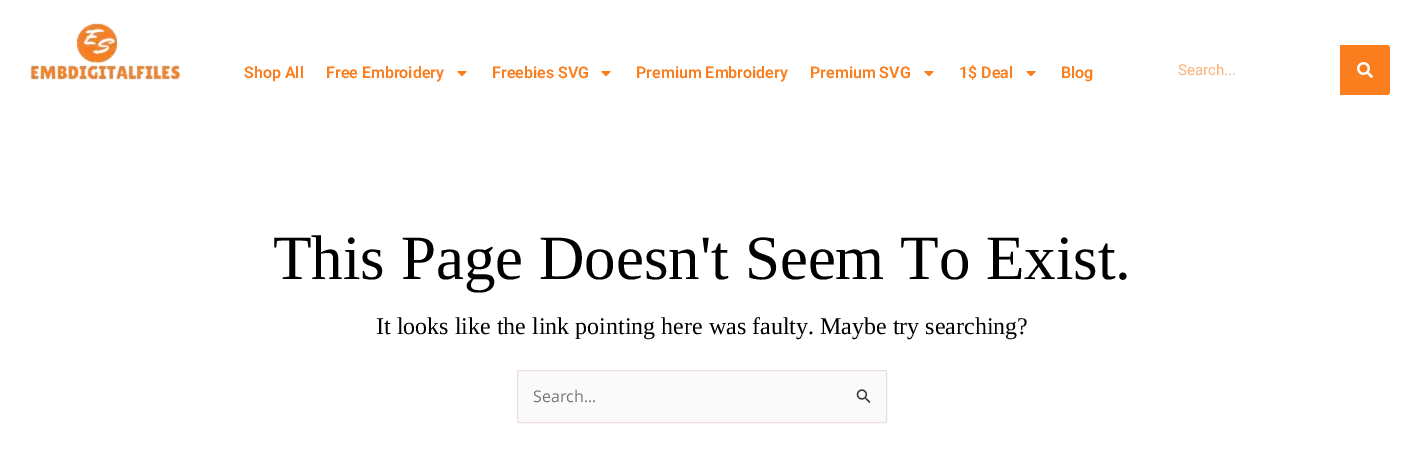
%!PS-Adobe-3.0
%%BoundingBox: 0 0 1404 453
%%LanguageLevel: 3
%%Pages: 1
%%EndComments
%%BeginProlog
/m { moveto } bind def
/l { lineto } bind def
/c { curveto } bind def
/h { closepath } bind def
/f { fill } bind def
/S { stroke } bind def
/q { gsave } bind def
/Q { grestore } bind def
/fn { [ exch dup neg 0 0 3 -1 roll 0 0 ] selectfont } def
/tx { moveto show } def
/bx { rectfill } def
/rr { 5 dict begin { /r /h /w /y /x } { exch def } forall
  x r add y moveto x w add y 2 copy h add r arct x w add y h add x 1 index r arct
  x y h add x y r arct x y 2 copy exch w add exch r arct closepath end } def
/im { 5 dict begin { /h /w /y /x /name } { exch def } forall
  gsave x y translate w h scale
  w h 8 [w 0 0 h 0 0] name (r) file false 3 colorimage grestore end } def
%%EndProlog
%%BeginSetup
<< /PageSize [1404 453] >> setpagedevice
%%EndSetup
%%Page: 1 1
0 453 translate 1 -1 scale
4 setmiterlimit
1 setgray
0 0 1404 453 bx
(image0.raw) 30 23 151 57 im
/Roboto-SemiBold 16 fn
0.98 0.494 0.118 setrgbcolor
(Shop All) 244 78 tx
(Free Embroidery) 326 78 tx
(image1.raw) 457 71 10 6 im
(Freebies SVG) 492 78 tx
(image1.raw) 601 71 10 6 im
(Premium Embroidery) 636 78 tx
(Premium SVG) 810 78 tx
(image1.raw) 924 71 10 6 im
(1$ Deal) 959 78 tx
(image1.raw) 1026 71 10 6 im
(Blog) 1061 78 tx
/Roboto-Regular 15 fn
0.988 0.698 0.471 setrgbcolor
(Search...) 1178 75 tx
0.98 0.494 0.118 setrgbcolor
1340 45 m 1387 45 l 1388.5 45 1390 46.5 1390 48 c 1390 92 l 1390 93.5 1388.5 95 1387 95 c 1340 95 l h f
(image2.raw) 1357 62 16 16 im
/LiberationSerif-Regular 63 fn
0 setgray
(This Page Doesn't Seem To Exist.) 273 279 tx
/LiberationSerif-Regular 24 fn
(It looks like the link pointing here was faulty. Maybe try searching?) 376 334 tx
0.98 setgray
517.5 370.5 369 52 1.5 rr q f Q
0.929 0.863 0.886 setrgbcolor
S
/OpenSans-Regular 16 fn
0.459 setgray
(Search...) 533 402 tx
(image3.raw) 856 389 14 15 im
showpage
%%EOF
